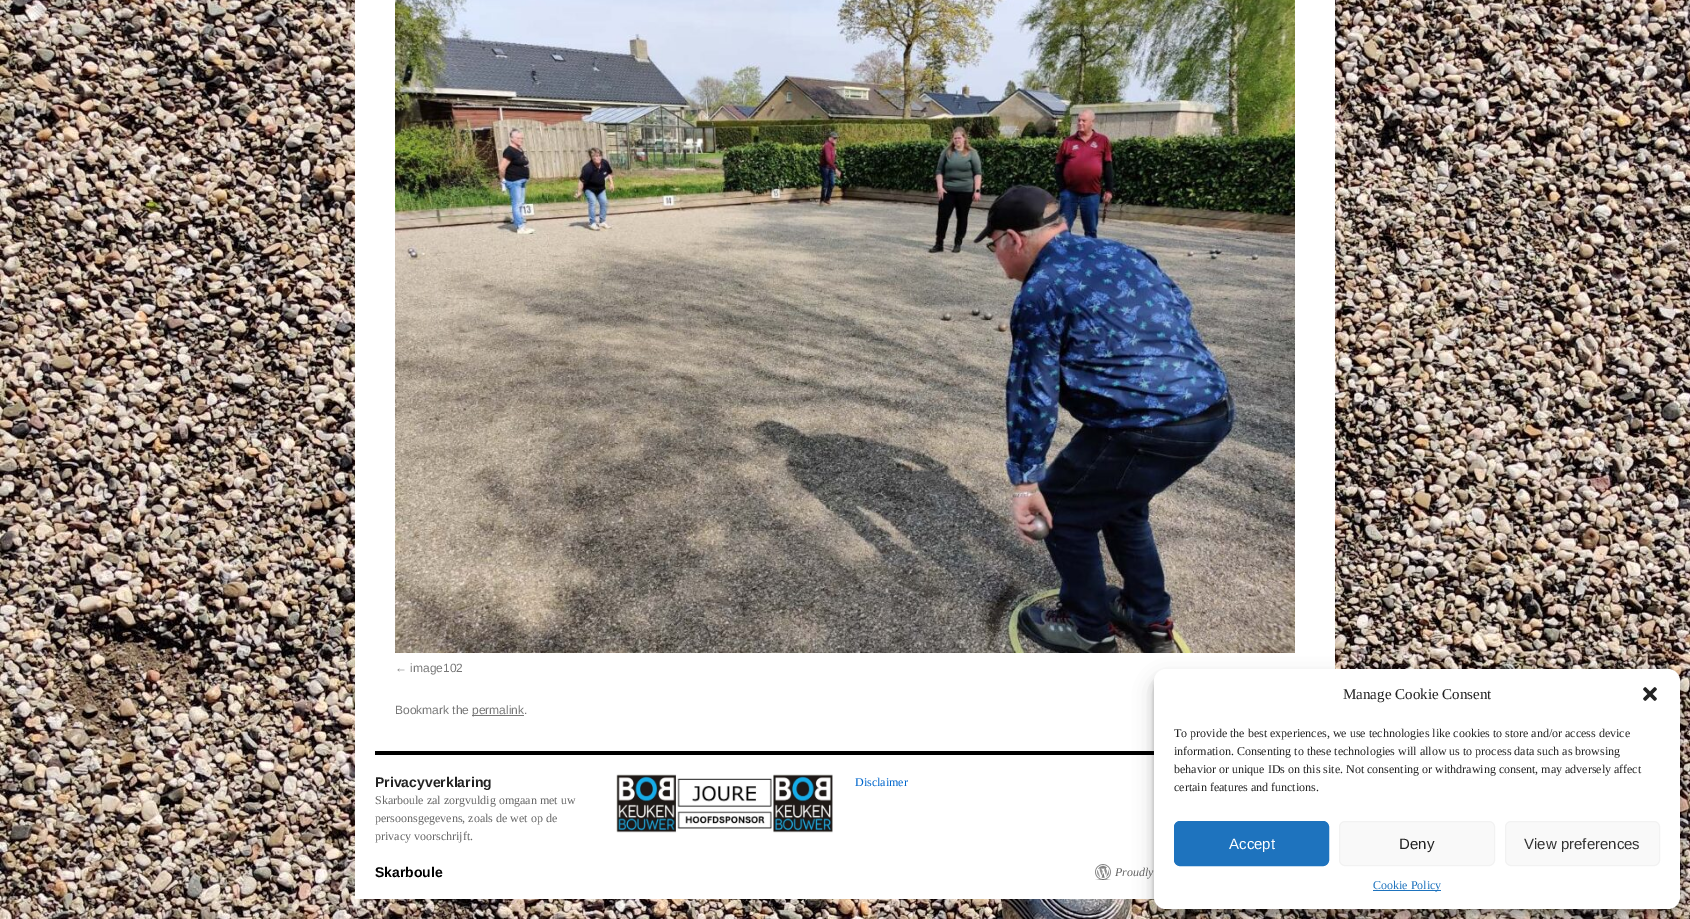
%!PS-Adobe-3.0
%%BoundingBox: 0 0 1690 919
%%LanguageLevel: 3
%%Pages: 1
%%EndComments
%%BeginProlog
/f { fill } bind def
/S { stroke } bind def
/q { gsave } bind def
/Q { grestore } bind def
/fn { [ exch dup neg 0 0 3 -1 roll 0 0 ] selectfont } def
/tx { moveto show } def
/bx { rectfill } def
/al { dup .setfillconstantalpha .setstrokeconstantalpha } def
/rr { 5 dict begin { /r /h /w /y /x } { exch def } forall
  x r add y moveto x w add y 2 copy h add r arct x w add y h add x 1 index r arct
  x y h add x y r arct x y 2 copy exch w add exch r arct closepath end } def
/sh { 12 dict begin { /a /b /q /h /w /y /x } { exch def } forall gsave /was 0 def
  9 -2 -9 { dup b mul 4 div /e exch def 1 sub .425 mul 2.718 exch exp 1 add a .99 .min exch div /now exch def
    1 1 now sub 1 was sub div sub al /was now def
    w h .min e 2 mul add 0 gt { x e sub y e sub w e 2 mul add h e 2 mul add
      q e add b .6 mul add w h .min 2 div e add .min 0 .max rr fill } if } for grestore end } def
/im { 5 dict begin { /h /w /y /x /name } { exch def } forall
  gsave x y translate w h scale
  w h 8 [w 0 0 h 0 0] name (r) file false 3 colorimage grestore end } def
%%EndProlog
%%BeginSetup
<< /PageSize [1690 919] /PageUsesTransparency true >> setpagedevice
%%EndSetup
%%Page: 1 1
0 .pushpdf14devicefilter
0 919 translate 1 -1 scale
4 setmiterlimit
1 setgray
0 0 1690 919 bx
(image0.raw) 0 0 1690 919 im
355 0 980 899 bx
(image1.raw) 395 0 900 653 im
/LiberationSans-Regular 12 fn
0.467 setgray
(← image102) 395 672 tx
(Bookmark the) 395 714 tx
472 715 52 1 bx
(permalink.) 472 714 tx
0 setgray
375 751 779 4 bx
/LiberationSans-Bold 14 fn
0.133 setgray
(Privacyverklaring) 375 787 tx
/LiberationSerif-Regular 12 fn
0.4 setgray
(Skarboule zal zorgvuldig omgaan met uw) 375 804 tx
(persoonsgegevens, zoals de wet op de) 375 822 tx
(privacy voorschrijft.) 375 840 tx
(image2.raw) 616 774 217 59 im
0 0.4 0.8 setrgbcolor
(Disclaimer) 855 786 tx
/LiberationSans-Bold 14 fn
0 setgray
(Skarboule) 375 877 tx
(image3.raw) 1095 864 16 16 im
/LiberationSerif-Italic 12 fn
0.4 setgray
(Proudly) 1115 876 tx
0 setgray
1154 675 526 240 12 3 0.23 sh
1154 679 526 240 12 10 0.19 sh
1 setgray
1154 669 526 240 12 rr f
/LiberationSerif-Regular 15 fn
0.133 setgray
(Manage Cookie Consent) 1343 699 tx
(image4.raw) 1643 687 14 14 im
/LiberationSerif-Regular 12 fn
(To provide the best experiences, we use technologies like cookies to store and/or access device) 1174 737 tx
(information. Consenting to these technologies will allow us to process data such as browsing) 1174 755 tx
(behavior or unique IDs on this site. Not consenting or withdrawing consent, may adversely affect) 1174 773 tx
(certain features and functions.) 1174 791 tx
0.118 0.451 0.745 setrgbcolor
1174.5 821.5 154 44 5.5 rr q f Q
S
/LiberationSans-Regular 15 fn
1 setgray
(Accept) 1229 849 tx
0.976 setgray
1339.5 821.5 155 44 5.5 rr q f Q
0.949 setgray
S
0.133 setgray
(Deny) 1399 849 tx
0.976 setgray
1505.5 821.5 154 44 5.5 rr q f Q
0.949 setgray
S
0.2 setgray
(View preferences) 1524 849 tx
0.118 0.451 0.745 setrgbcolor
1373 890 68 1 bx
/LiberationSerif-Regular 12 fn
(Cookie Policy) 1373 889 tx
.poppdf14devicefilter showpage
%%EOF
